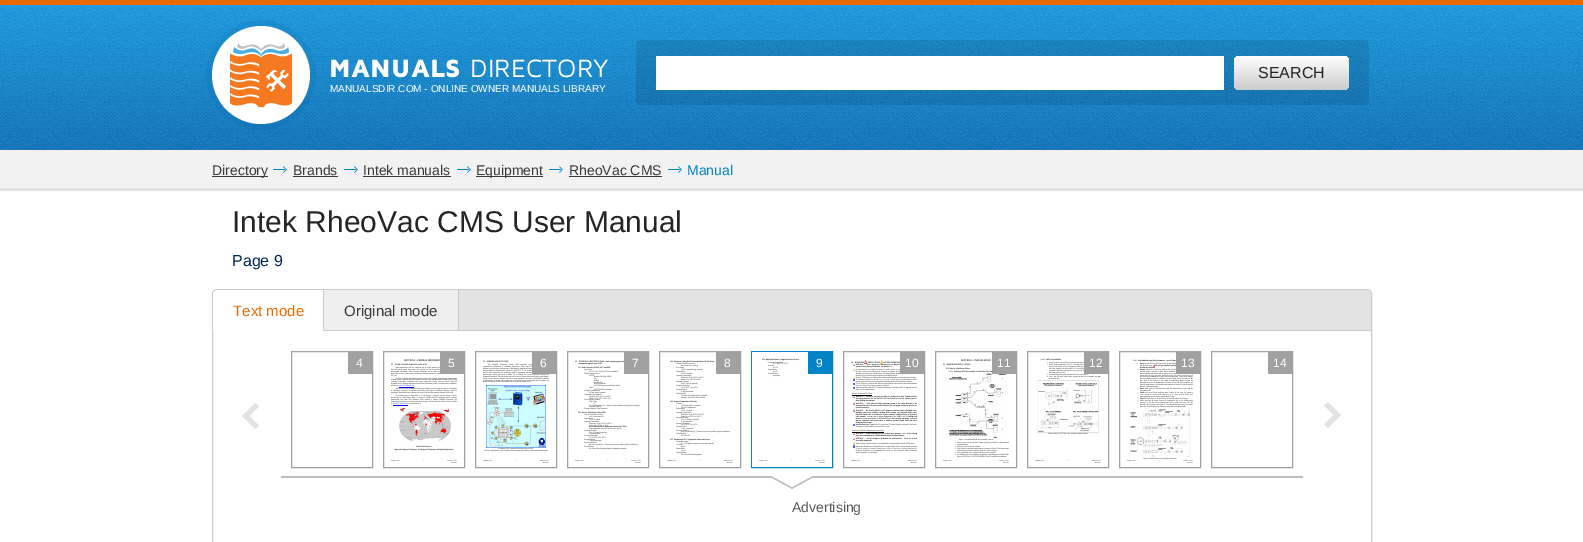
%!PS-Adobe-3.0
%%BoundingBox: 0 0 1583 542
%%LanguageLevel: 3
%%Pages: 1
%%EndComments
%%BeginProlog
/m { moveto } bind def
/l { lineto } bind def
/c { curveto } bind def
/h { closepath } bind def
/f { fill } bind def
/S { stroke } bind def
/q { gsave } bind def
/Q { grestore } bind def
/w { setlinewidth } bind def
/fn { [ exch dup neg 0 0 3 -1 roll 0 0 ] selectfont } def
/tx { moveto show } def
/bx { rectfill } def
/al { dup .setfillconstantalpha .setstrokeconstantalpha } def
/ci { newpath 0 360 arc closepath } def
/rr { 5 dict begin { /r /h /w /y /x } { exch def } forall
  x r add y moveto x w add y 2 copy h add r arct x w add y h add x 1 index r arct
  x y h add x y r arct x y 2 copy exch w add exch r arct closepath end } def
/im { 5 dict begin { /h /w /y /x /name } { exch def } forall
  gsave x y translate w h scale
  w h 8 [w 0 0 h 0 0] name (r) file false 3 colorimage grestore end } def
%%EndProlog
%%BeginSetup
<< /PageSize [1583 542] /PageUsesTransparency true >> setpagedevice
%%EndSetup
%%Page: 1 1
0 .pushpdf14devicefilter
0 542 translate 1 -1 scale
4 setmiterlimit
1 setgray
0 0 1583 542 bx
q 0 5 m 1583 5 l 1583 150 l 0 150 l h clip newpath
<< /ShadingType 2 /ColorSpace /DeviceRGB /Coords [792 5 792 150] /Extend [true true] /Function << /FunctionType 2 /Domain [0 1] /C0 [0.055 0.588 0.871] /C1 [0.016 0.427 0.718] /N 1 >> >> shfill Q
0.922 0.416 0 setrgbcolor
0 0 1583 5 bx
(image0.raw) 0 5 1583 145 im
1 setgray
261 75 49 ci f
0.14 al
0 0.353 0.6 setrgbcolor
6 w
261 75 52 ci S
1 al
(image1.raw) 230 43 62 65 im
/MavenPro-Black 26 fn
1 setgray
329 77 m 0.25 0 (MANUALS) ashow
/MavenPro-Regular 26 fn
470 77 m 0.25 0 (DIRECTORY) ashow
/LiberationSans-Regular 10 fn
(MANUALSDIR.COM - ONLINE OWNER MANUALS LIBRARY) 330 92 tx
0.1 al
0 setgray
636 40 733 65 5 rr f
1 al
1 setgray
656 56 568 34 bx
q 1234 56 115 34 5 rr clip newpath
<< /ShadingType 2 /ColorSpace /DeviceRGB /Coords [1292 90 1292 56] /Extend [true true] /Function << /FunctionType 2 /Domain [0 1] /C0 [0.8 0.8 0.8] /C1 [1 1 1] /N 1 >> >> shfill Q
/LiberationSans-Regular 16 fn
0.145 setgray
(SEARCH) 1258 78 tx
0.949 setgray
0 150 1583 38 bx
0.886 setgray
0 188 1583 3 bx
0.224 setgray
212 176 56 1 bx
/LiberationSans-Regular 14 fn
(Directory) 212 175 tx
(image2.raw) 273 166 14 7 im
(Brands) 293 175 tx
293 176 45 1 bx
(image2.raw) 344 166 14 7 im
(Intek manuals) 363 175 tx
363 176 88 1 bx
(image2.raw) 457 166 14 7 im
476 176 67 1 bx
(Equipment) 476 175 tx
(image2.raw) 549 166 14 7 im
(RheoVac CMS) 569 175 tx
569 176 93 1 bx
(image2.raw) 668 166 14 7 im
0.004 0.514 0.784 setrgbcolor
(Manual) 687 175 tx
/LiberationSans-Regular 30 fn
0.145 setgray
(Intek RheoVac CMS User Manual) 232 232 tx
/LiberationSans-Regular 16 fn
0 0.149 0.337 setrgbcolor
(Page 9) 232 266 tx
0.796 setgray
1 w
212.5 289.5 1159 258 4.5 rr S
0.89 setgray
218 290 m 1366 290 l 1369 290 1371 292 1371 295 c 1371 331 l 213 331 l 213 295 l 213 292 215 290 218 290 c h f
0.796 setgray
459 330 912 1 bx
1 setgray
218 290 m 324 290 l 324 331 l 213 331 l 213 295 l 213 292 215 290 218 290 c h f
0.796 setgray
324 290 m 324 331 l 323 330 l 323 290 l h f
/LiberationSans-Regular 15 fn
0.922 0.416 0 setrgbcolor
(Text mode) 233 316 tx
0.937 setgray
324 290 134 40 bx
0.796 setgray
458 290 1 41 bx
324 330 135 1 bx
0.224 setgray
(Original mode) 344 316 tx
0.631 setgray
291.5 351.5 81 116 rectstroke
348 352 24 22 bx
/LiberationSans-Regular 12 fn
1 setgray
(4) 356 367 tx
0.631 setgray
383.5 351.5 81 116 rectstroke
(image3.raw) 391 359 66 104 im
440 352 24 22 bx
1 setgray
(5) 448 367 tx
0.631 setgray
475.5 351.5 81 116 rectstroke
(image4.raw) 483 360 66 103 im
532 352 24 22 bx
1 setgray
(6) 540 367 tx
0.631 setgray
567.5 351.5 81 116 rectstroke
(image5.raw) 575 360 66 103 im
624 352 24 22 bx
1 setgray
(7) 632 367 tx
0.631 setgray
659.5 351.5 81 116 rectstroke
(image6.raw) 667 360 66 103 im
716 352 24 22 bx
1 setgray
(8) 724 367 tx
0.004 0.514 0.784 setrgbcolor
751.5 351.5 81 116 rectstroke
(image7.raw) 752 352 80 115 im
808 352 24 22 bx
1 setgray
(9) 816 367 tx
0.745 setgray
281 476 1022 2 bx
770 477 m 814 477 l 792 489 l h f
1 setgray
770 475 m 814 475 l 792 487 l h f
0.631 setgray
843.5 351.5 81 116 rectstroke
(image8.raw) 851 360 66 103 im
900 352 24 22 bx
1 setgray
(10) 905 367 tx
0.631 setgray
935.5 351.5 81 116 rectstroke
(image9.raw) 943 359 66 104 im
992 352 24 22 bx
1 setgray
(11) 997 367 tx
0.631 setgray
1027.5 351.5 81 116 rectstroke
(image10.raw) 1035 358 66 105 im
1084 352 24 22 bx
1 setgray
(12) 1089 367 tx
0.631 setgray
1119.5 351.5 81 116 rectstroke
(image11.raw) 1127 359 66 104 im
1176 352 24 22 bx
1 setgray
(13) 1181 367 tx
0.631 setgray
1211.5 351.5 81 116 rectstroke
1268 352 24 22 bx
1 setgray
(14) 1273 367 tx
0.89 setgray
255 429 m 242 416 l 255 403 l 259 406.5 l 249.5 416 l 259 425.5 l h f
1328 402 m 1341 415 l 1328 428 l 1324 424.5 l 1333.5 415 l 1324 405.5 l h f
/LiberationSans-Regular 14 fn
0.341 setgray
(Advertising) 792 512 tx
.poppdf14devicefilter showpage
%%EOF
